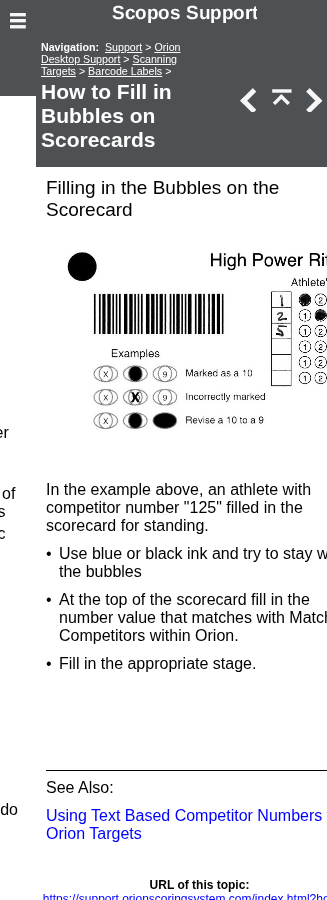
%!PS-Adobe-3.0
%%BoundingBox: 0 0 327 900
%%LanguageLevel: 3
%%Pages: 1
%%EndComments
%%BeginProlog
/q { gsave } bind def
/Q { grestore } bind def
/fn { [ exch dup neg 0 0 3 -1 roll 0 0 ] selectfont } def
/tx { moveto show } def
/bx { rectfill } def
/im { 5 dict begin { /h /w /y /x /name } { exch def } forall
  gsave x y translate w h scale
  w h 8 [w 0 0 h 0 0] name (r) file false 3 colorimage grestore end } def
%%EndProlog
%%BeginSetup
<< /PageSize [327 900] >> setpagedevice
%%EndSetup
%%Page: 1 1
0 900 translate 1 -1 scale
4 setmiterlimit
0.306 0.318 0.329 setrgbcolor
0 0 327 900 bx
(image0.raw) 10 13 16 16 im
q
112 2 145 22 rectclip
/LiberationSans-Bold 19 fn
1 setgray
(Scopos Support) 112 19 tx
Q
1 setgray
0 96 36 804 bx
(image1.raw) 0 429 18 386 im
(image2.raw) 36 36 291 864 im
showpage
%%EOF
